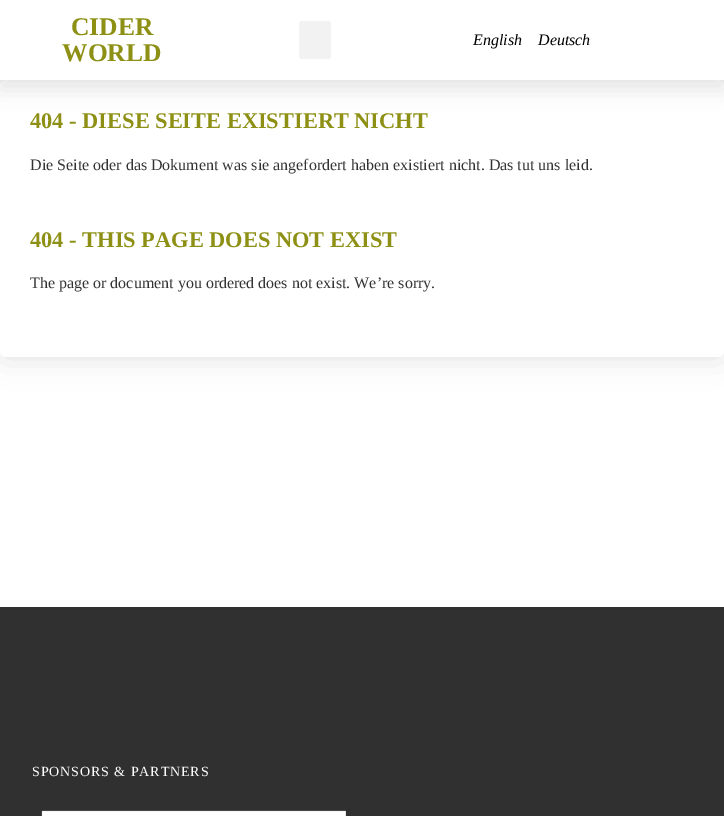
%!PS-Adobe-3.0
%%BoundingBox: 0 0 724 816
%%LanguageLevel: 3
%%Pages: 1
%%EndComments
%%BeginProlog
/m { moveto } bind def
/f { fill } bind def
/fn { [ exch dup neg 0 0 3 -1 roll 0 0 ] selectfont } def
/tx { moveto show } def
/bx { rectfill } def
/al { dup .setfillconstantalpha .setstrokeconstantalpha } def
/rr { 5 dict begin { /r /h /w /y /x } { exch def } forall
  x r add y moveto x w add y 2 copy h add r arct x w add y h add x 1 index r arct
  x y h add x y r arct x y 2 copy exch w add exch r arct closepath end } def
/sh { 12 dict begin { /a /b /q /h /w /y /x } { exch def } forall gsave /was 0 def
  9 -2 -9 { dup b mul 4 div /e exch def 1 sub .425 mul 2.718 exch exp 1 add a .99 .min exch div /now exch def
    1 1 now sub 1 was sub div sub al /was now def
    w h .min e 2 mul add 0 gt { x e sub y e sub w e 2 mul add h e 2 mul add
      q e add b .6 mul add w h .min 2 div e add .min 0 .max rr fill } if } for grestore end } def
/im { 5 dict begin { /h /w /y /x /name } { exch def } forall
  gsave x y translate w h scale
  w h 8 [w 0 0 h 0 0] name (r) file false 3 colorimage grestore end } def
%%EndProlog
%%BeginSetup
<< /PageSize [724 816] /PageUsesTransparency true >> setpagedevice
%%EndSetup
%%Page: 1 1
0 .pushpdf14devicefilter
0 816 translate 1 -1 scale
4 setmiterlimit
1 setgray
0 0 724 816 bx
0 setgray
0 80 724 277 6 15 0.13 sh
1 setgray
0 80 724 277 6 rr f
0 setgray
0 10 724 80 0 10 0.1 sh
1 setgray
0 0 724 80 bx
/LiberationSerif-Bold 25.5 fn
0.553 0.565 0.082 setrgbcolor
(CIDER) 71 35 tx
(WORLD) 62 61 tx
0.949 setgray
299 21 32 38 3 rr f
/LiberationSerif-Italic 16 fn
0 setgray
(English) 473 45 tx
(Deutsch) 538 45 tx
/LiberationSerif-Bold 22.4 fn
0.553 0.565 0.082 setrgbcolor
(404 - DIESE SEITE EXISTIERT NICHT) 30 128 tx
/LiberationSerif-Regular 16 fn
0.2 setgray
(Die Seite oder das Dokument was sie angefordert haben existiert nicht. Das tut uns leid.) 30 170 tx
/LiberationSerif-Bold 22.4 fn
0.553 0.565 0.082 setrgbcolor
(404 - THIS PAGE DOES NOT EXIST) 30 247 tx
/LiberationSerif-Regular 16 fn
0.2 setgray
(The page or document you ordered does not exist. We’re sorry.) 30 288 tx
0.188 setgray
0 607 724 209 bx
/LiberationSerif-Regular 14 fn
1 setgray
32 776 m 0.9 0 (SPONSORS & PARTNERS) ashow
(image0.raw) 41 810 305 6 im
.poppdf14devicefilter showpage
%%EOF
